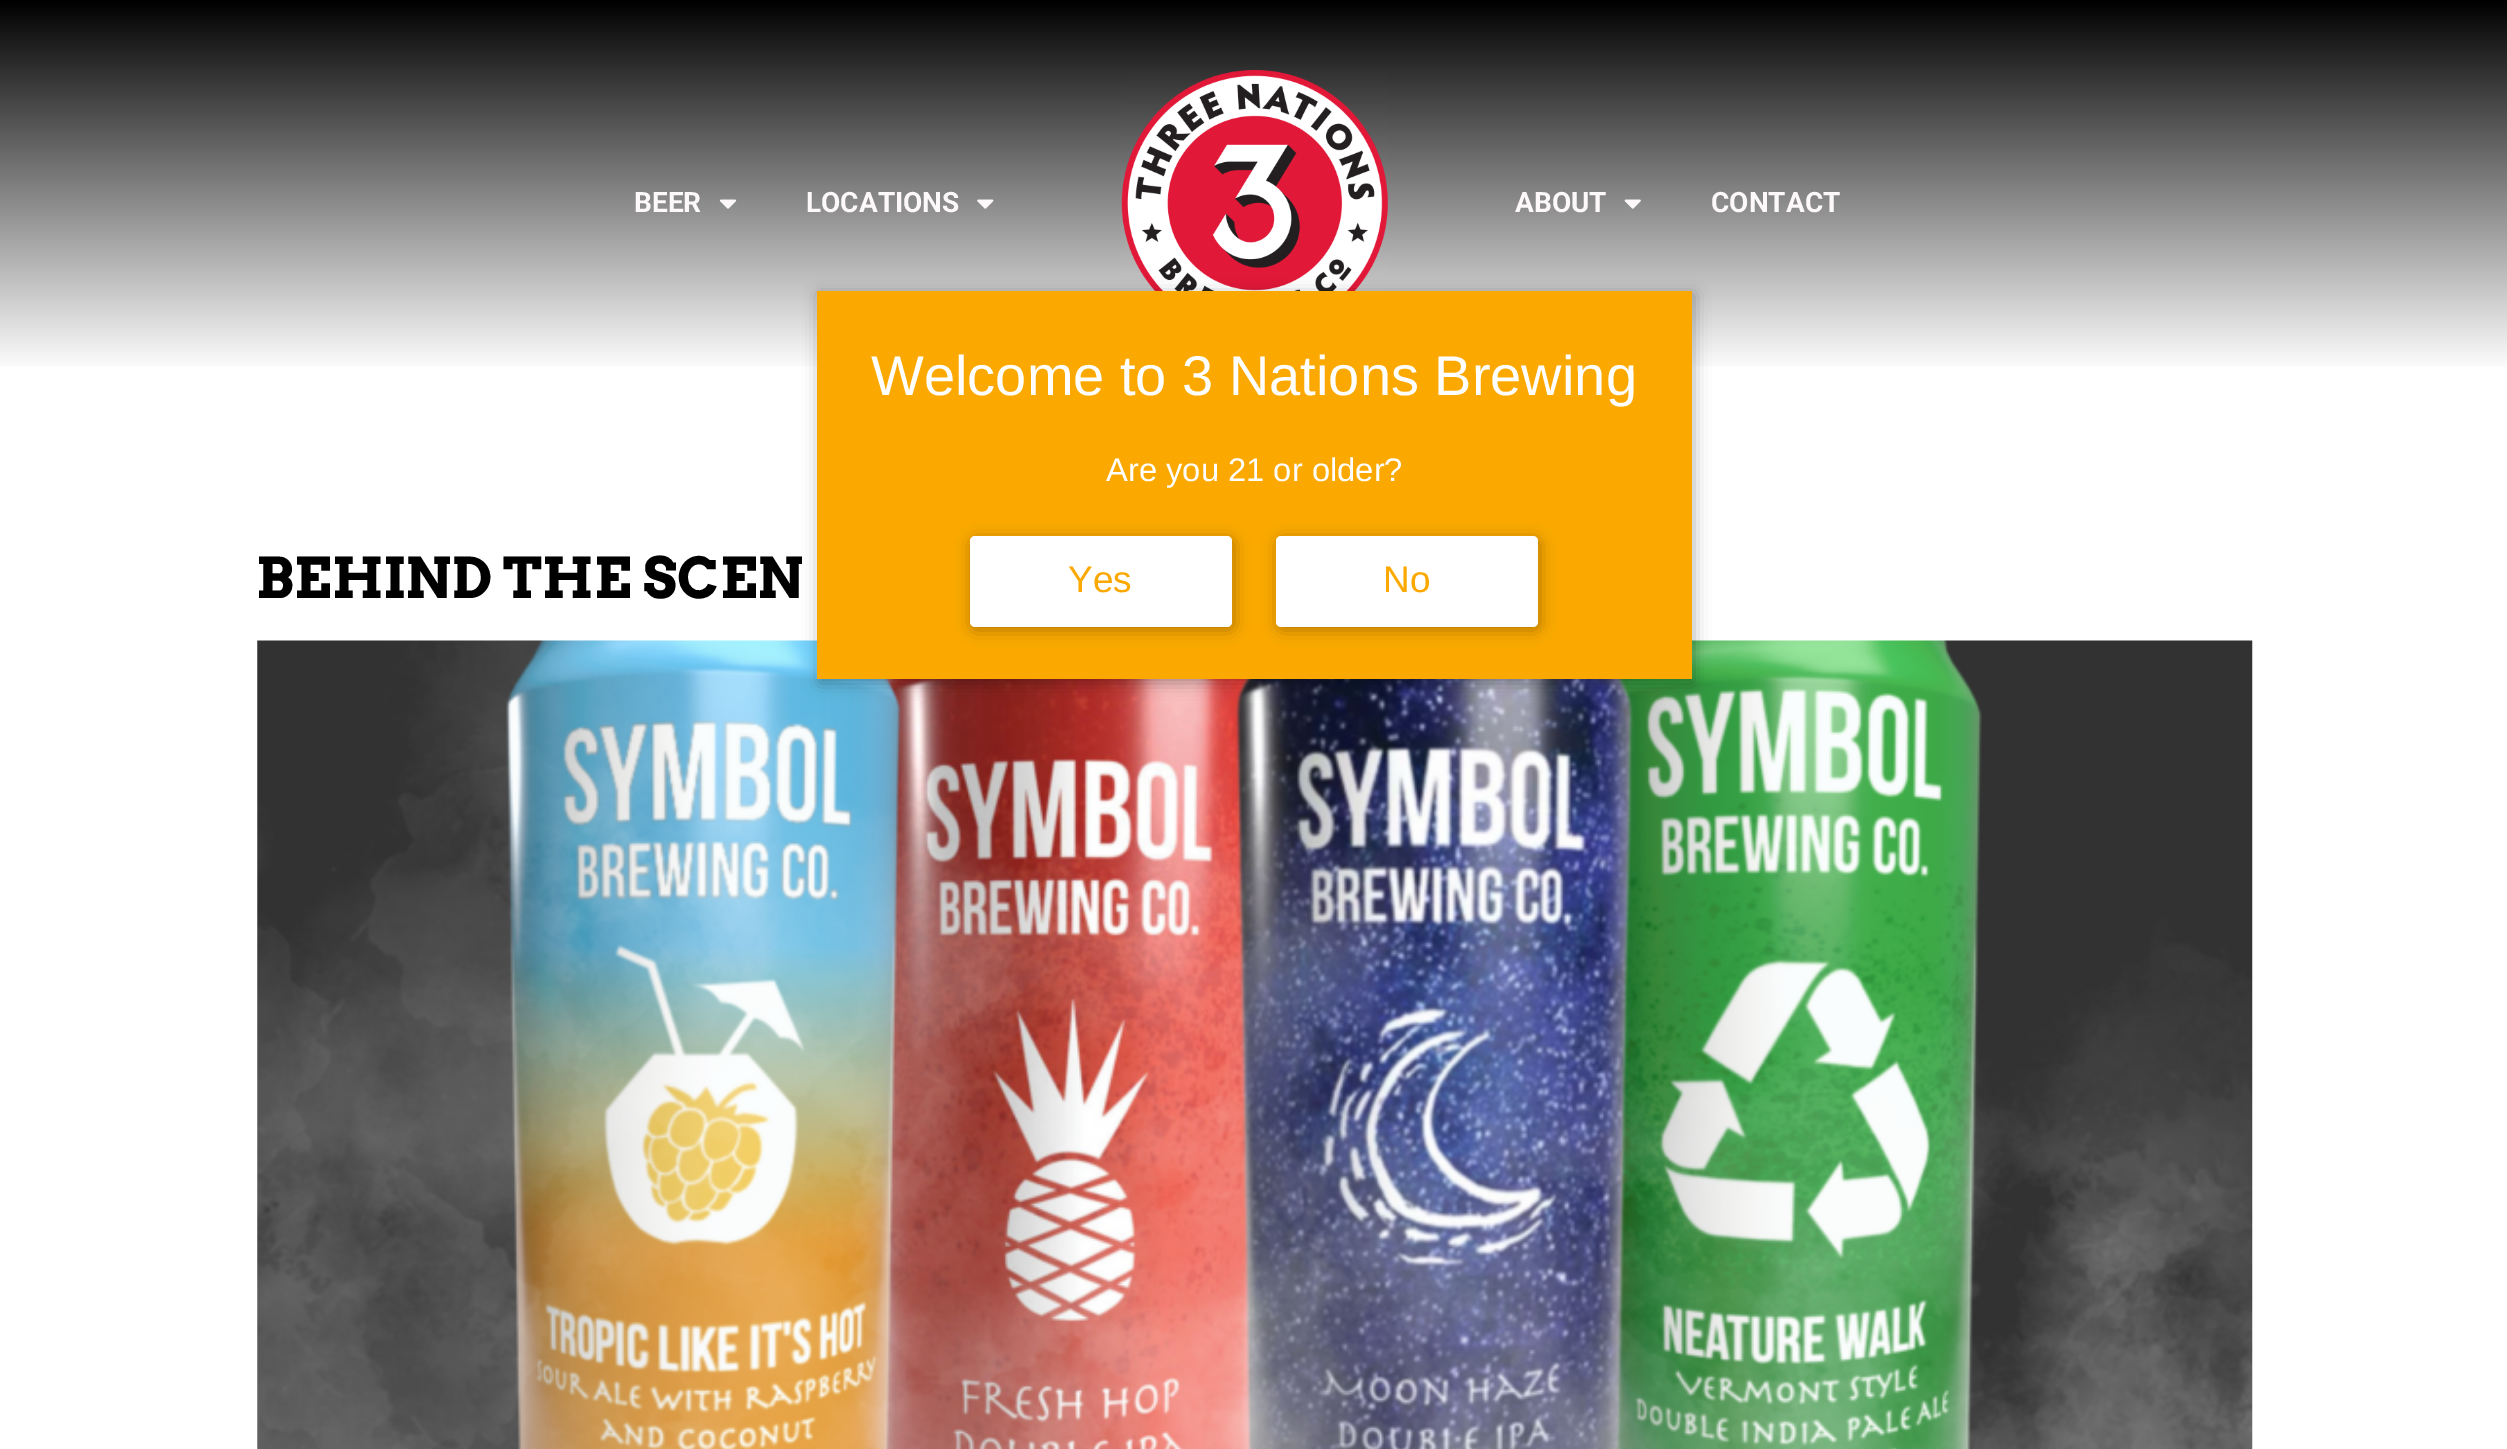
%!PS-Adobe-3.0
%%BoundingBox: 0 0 2507 1449
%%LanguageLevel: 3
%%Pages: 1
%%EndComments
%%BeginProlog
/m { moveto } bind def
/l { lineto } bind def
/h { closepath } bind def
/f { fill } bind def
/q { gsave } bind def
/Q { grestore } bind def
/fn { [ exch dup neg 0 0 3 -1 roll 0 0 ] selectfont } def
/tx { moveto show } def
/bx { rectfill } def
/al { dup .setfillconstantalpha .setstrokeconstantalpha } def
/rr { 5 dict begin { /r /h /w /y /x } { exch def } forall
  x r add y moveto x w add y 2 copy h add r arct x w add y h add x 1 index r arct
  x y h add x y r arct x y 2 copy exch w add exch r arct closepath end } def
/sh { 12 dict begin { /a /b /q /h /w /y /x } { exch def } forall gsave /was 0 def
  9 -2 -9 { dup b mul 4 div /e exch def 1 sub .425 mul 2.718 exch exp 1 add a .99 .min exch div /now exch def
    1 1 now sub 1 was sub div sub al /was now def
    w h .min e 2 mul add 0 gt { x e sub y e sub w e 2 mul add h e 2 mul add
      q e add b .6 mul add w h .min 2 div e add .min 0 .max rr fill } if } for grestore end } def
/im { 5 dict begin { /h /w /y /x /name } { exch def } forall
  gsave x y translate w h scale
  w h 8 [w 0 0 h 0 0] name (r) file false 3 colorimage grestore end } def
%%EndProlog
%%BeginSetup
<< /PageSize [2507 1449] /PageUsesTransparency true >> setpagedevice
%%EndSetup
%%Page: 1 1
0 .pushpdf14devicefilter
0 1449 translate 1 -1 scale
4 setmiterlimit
1 setgray
0 0 2507 1449 bx
q 0 0 m 2507 0 l 2507 367 l 0 367 l h clip newpath
<< /ShadingType 2 /ColorSpace /DeviceRGB /Coords [1254 0 1254 371] /Extend [true true] /Function << /FunctionType 2 /Domain [0 1] /C0 [0 0 0] /C1 [1 1 1] /N 1 >> >> shfill Q
/Roboto-Bold 28 fn
0.992 0.976 0.98 setrgbcolor
(BEER) 634 212 tx
(image0.raw) 719 199 18 10 im
(LOCATIONS) 806 212 tx
(image1.raw) 977 199 17 10 im
(image2.raw) 1121 70 267 221 im
(ABOUT) 1515 212 tx
(image3.raw) 1624 199 17 10 im
(CONTACT) 1711 212 tx
/Arvo-Bold 56 fn
0 setgray
(BEHIND THE SCEN) 256 598 tx
(image4.raw) 257 640 1996 809 im
819 294 875 389 0 8 0.3 sh
0.984 0.663 0 setrgbcolor
817 291 875 388 bx
/LiberationSans-Regular 56 fn
1 setgray
(Welcome to 3 Nations Brewing) 871 395 tx
/LiberationSans-Regular 32.75 fn
(Are you 21 or older?) 1106 481 tx
0 setgray
971 539 263 91 5 8 0.3 sh
1 setgray
970 536 262 91 5 rr f
/LiberationSans-Regular 37 fn
0.984 0.663 0 setrgbcolor
(Yes) 1068 592 tx
0 setgray
1278 539 262 91 5 8 0.3 sh
1 setgray
1276 536 262 91 5 rr f
0.984 0.663 0 setrgbcolor
(No) 1383 592 tx
.poppdf14devicefilter showpage
%%EOF
